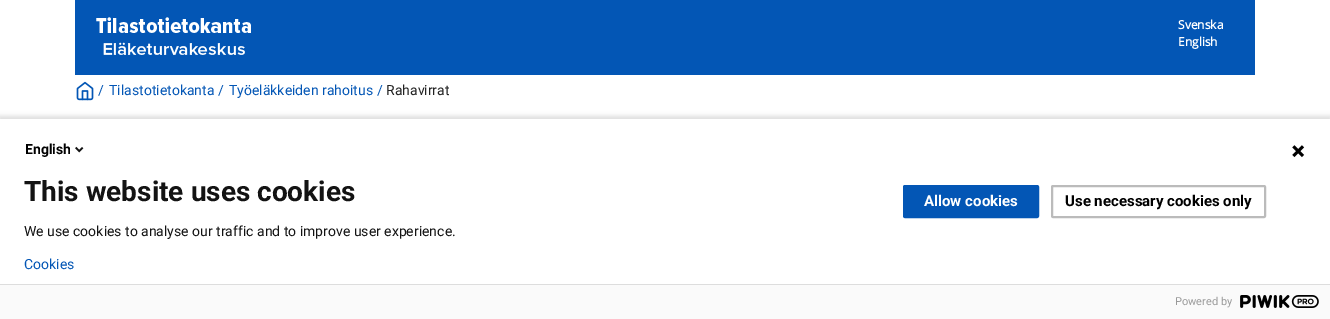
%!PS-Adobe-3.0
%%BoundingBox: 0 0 1330 319
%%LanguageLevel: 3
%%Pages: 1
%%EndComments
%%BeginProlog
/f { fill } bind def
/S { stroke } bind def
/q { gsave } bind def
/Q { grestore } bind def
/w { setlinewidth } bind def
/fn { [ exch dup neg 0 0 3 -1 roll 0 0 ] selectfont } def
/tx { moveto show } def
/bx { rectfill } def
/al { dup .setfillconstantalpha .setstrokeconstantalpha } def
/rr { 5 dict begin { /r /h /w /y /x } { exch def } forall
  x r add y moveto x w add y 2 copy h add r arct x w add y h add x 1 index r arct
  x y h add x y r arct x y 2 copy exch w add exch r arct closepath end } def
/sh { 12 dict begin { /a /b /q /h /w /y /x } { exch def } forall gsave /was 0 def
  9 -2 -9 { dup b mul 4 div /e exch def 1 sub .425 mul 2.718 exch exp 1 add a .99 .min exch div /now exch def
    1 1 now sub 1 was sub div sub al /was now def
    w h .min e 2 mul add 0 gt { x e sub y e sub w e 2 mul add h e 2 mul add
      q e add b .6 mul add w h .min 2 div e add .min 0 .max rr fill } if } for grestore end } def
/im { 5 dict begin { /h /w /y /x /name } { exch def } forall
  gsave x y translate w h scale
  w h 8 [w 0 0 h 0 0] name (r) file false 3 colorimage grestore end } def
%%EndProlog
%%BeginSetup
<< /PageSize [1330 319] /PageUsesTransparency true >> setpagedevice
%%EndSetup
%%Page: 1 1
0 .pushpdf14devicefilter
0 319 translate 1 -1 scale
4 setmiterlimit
1 setgray
0 0 1330 319 bx
0.012 0.337 0.71 setrgbcolor
75 0 1180 75 bx
(image0.raw) 96 17 155 38 im
/OpenSans-Bold 12 fn
1 setgray
(Svenska) 1178 29 tx
(English) 1178 46 tx
(image1.raw) 76 81 18 20 im
/Roboto-Regular 14 fn
0.012 0.337 0.71 setrgbcolor
(/) 98 95 tx
(Tilastotietokanta) 109 95 tx
(/) 218 95 tx
(Työeläkkeiden rahoitus) 229 95 tx
(/) 377 95 tx
0.133 setgray
(Rahavirrat) 386 95 tx
0 setgray
-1 116 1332 202 0 2.5 0.14 sh
1 setgray
0 119 1330 165 bx
/Roboto-Bold 14 fn
0 setgray
(English) 25 154 tx
(image2.raw) 75 146 9 7 im
/Roboto-Bold 28 fn
0.075 setgray
(This website uses cookies) 24 201 tx
/Roboto-Regular 14 fn
(We use cookies to analyse our traffic and to improve user experience.) 24 236 tx
0.012 0.337 0.71 setrgbcolor
(Cookies) 24 269 tx
(image3.raw) 1292 145 13 13 im
904 186 134 31 1 rr q f Q
2 w
S
/Roboto-Bold 15 fn
1 setgray
(Allow cookies) 924 206 tx
0.733 setgray
1052 186 213 31 1 rr S
0 setgray
(Use necessary cookies only) 1065 206 tx
0.98 setgray
0 285 1330 34 bx
0.867 setgray
0 284 1330 1 bx
/Roboto-Regular 11 fn
0.6 setgray
(Powered by) 1175 305 tx
(image4.raw) 1240 295 79 13 im
.poppdf14devicefilter showpage
%%EOF
